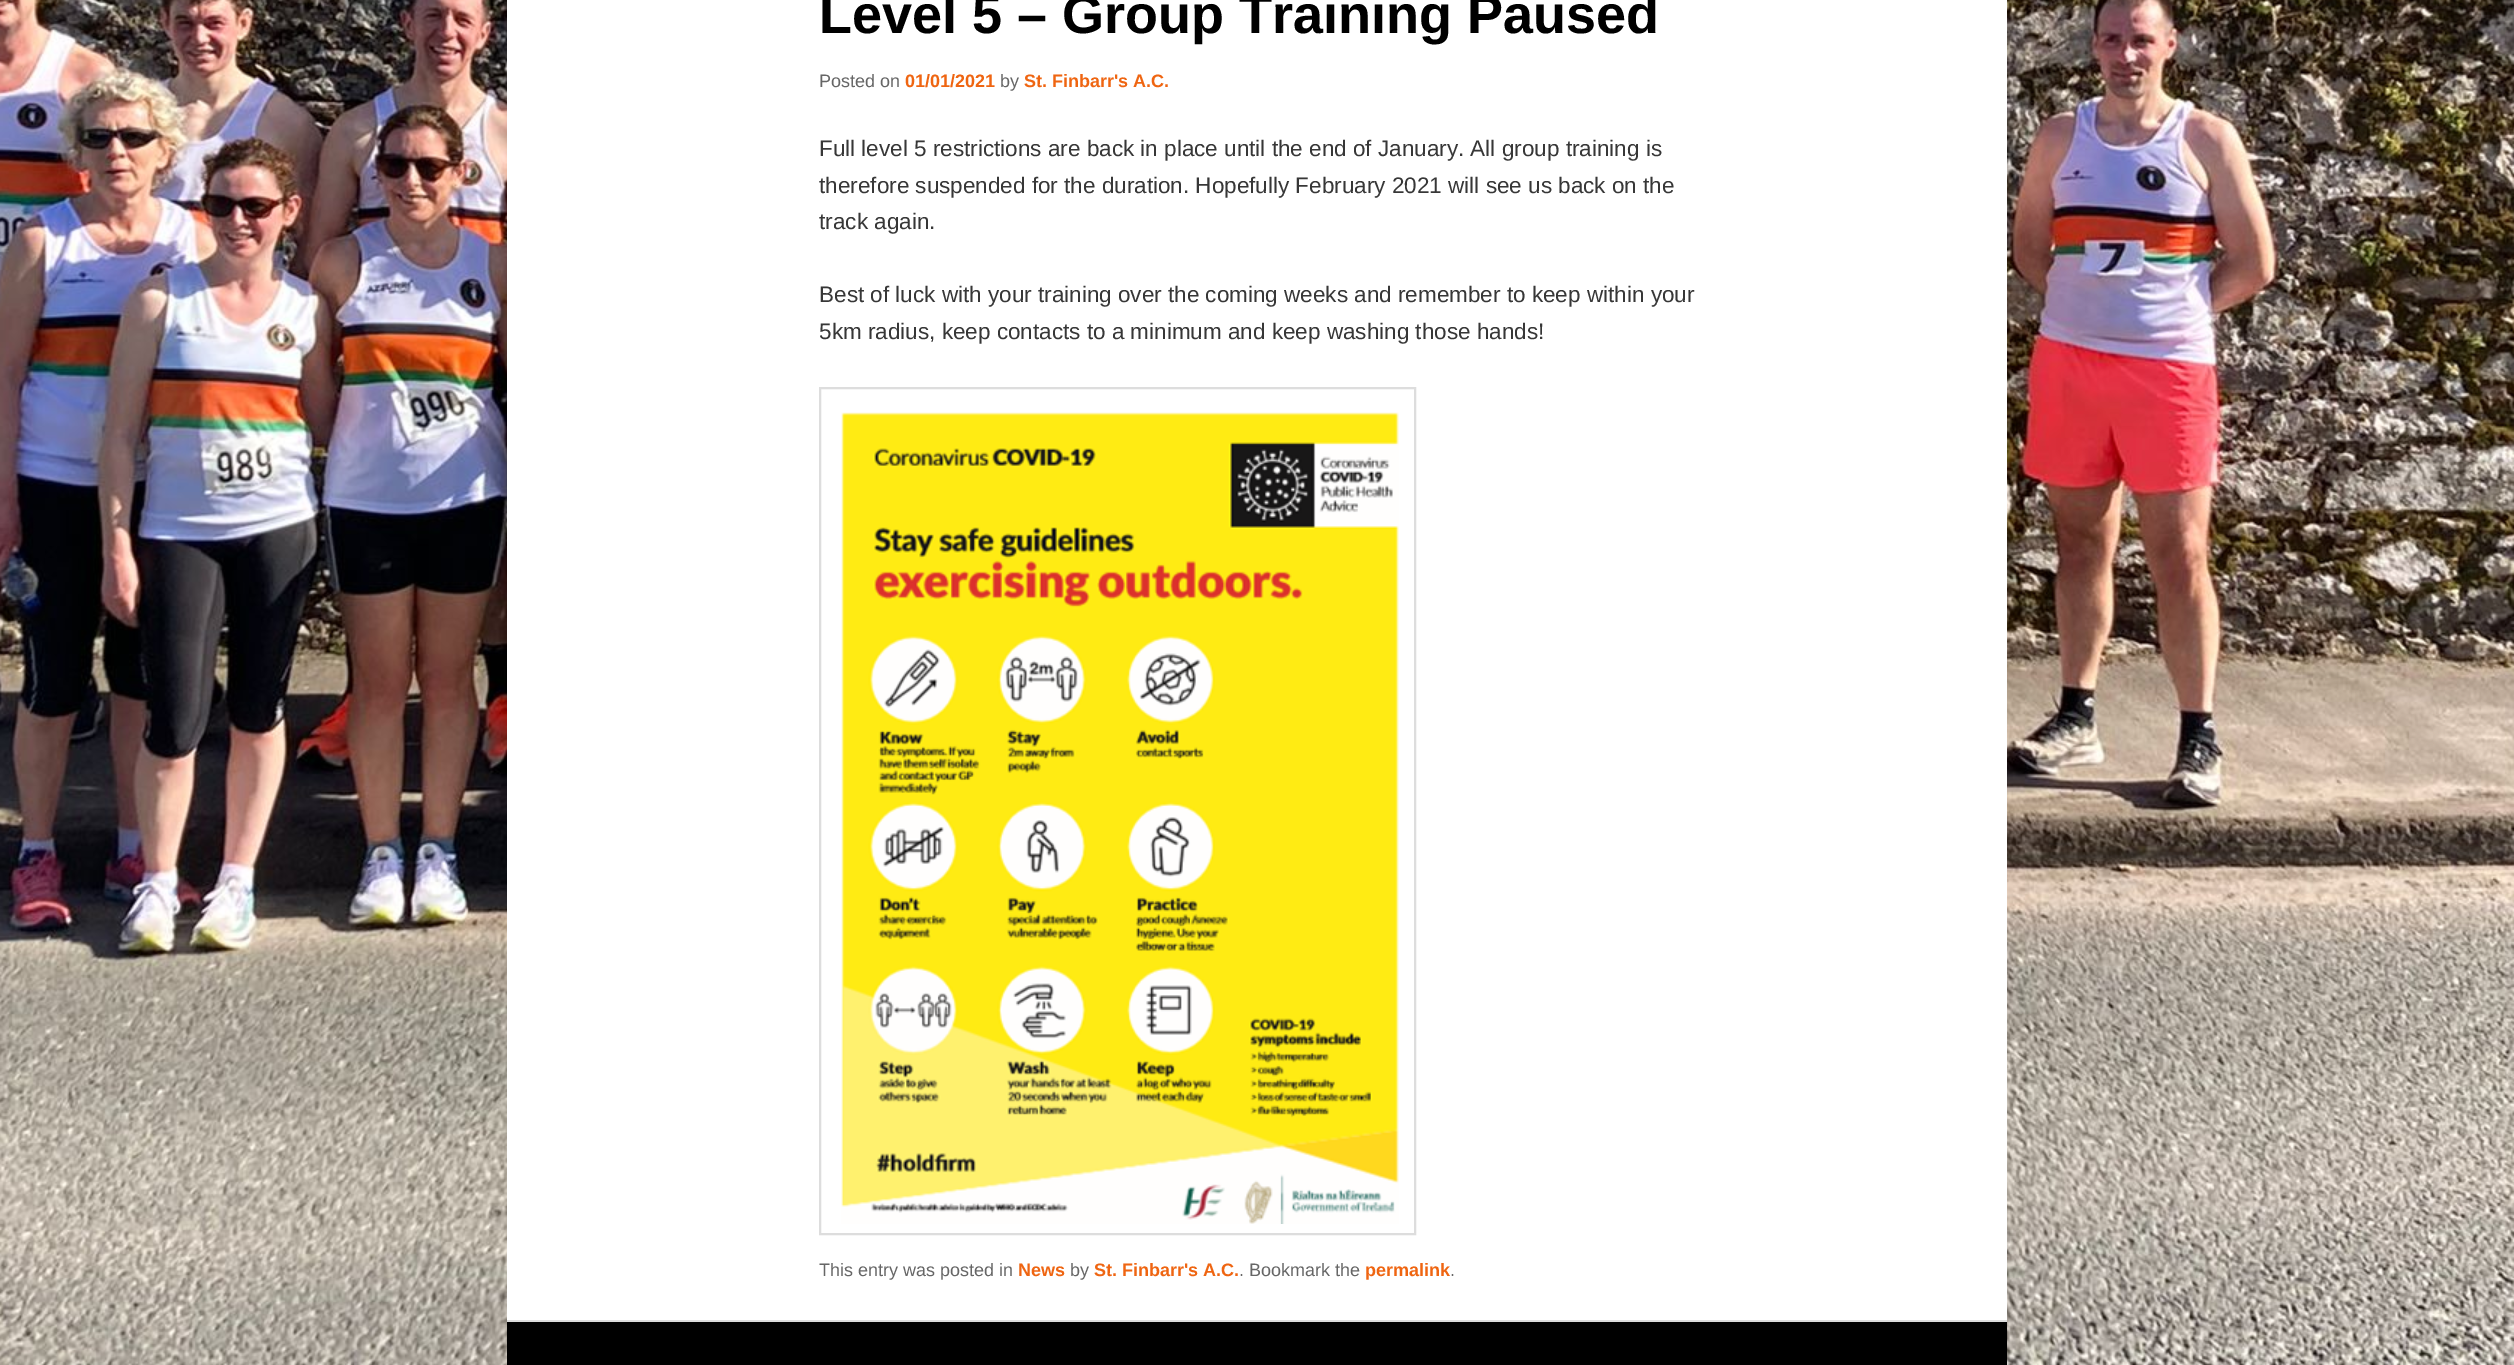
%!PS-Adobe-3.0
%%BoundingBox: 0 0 2514 1365
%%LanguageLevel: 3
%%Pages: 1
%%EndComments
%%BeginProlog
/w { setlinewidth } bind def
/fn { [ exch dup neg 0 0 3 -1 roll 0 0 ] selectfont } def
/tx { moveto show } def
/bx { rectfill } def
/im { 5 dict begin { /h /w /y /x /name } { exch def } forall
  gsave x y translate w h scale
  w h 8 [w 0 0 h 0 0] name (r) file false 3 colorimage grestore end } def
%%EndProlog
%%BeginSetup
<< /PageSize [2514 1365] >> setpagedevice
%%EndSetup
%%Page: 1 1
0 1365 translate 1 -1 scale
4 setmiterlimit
1 setgray
0 0 2514 1365 bx
(image0.raw) 0 0 2514 1365 im
507 0 1500 1320 bx
/LiberationSans-Bold 54 fn
0 setgray
(Level 5 – Group Training Paused) 819 33 tx
/LiberationSans-Regular 18 fn
0.4 setgray
(Posted on) 819 87 tx
/LiberationSans-Bold 18 fn
0.937 0.396 0.067 setrgbcolor
(01/01/2021) 905 87 tx
/LiberationSans-Regular 18 fn
0.4 setgray
(by) 1000 87 tx
/LiberationSans-Bold 18 fn
0.937 0.396 0.067 setrgbcolor
(St. Finbarr's A.C.) 1024 87 tx
/LiberationSans-Regular 22.5 fn
0.216 setgray
(Full level 5 restrictions are back in place until the end of January. All group training is) 819 156 tx
(therefore suspended for the duration. Hopefully February 2021 will see us back on the) 819 193 tx
(track again.) 819 229 tx
(Best of luck with your training over the coming weeks and remember to keep within your) 819 302 tx
(5km radius, keep contacts to a minimum and keep washing those hands!) 819 339 tx
0.867 setgray
2 w
820 388 595 846 rectstroke
(image1.raw) 841 412 558 812 im
/LiberationSans-Regular 18 fn
0.4 setgray
(This entry was posted in) 819 1276 tx
/LiberationSans-Bold 18 fn
0.937 0.396 0.067 setrgbcolor
(News) 1018 1276 tx
/LiberationSans-Regular 18 fn
0.4 setgray
(by) 1070 1276 tx
/LiberationSans-Bold 18 fn
0.937 0.396 0.067 setrgbcolor
(St. Finbarr's A.C.) 1094 1276 tx
/LiberationSans-Regular 18 fn
0.4 setgray
(. Bookmark the) 1239 1276 tx
/LiberationSans-Bold 18 fn
0.937 0.396 0.067 setrgbcolor
(permalink) 1365 1276 tx
/LiberationSans-Regular 18 fn
0.4 setgray
(.) 1450 1276 tx
0 setgray
507 1322 1500 43 bx
0.867 setgray
507 1320 1500 2 bx
showpage
%%EOF
